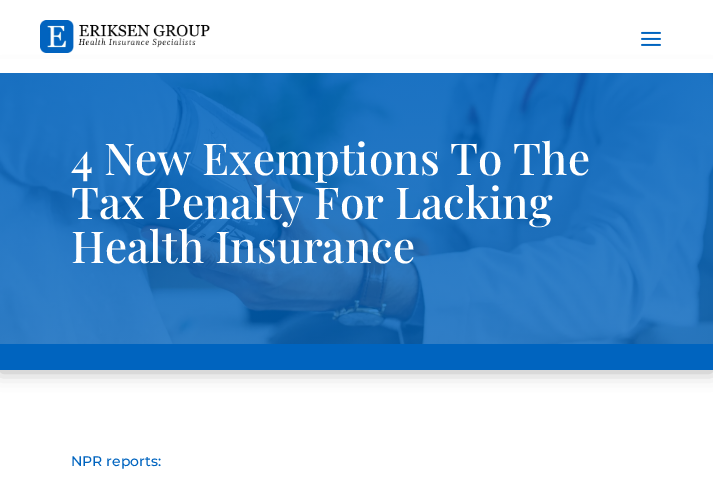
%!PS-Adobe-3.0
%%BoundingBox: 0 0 713 494
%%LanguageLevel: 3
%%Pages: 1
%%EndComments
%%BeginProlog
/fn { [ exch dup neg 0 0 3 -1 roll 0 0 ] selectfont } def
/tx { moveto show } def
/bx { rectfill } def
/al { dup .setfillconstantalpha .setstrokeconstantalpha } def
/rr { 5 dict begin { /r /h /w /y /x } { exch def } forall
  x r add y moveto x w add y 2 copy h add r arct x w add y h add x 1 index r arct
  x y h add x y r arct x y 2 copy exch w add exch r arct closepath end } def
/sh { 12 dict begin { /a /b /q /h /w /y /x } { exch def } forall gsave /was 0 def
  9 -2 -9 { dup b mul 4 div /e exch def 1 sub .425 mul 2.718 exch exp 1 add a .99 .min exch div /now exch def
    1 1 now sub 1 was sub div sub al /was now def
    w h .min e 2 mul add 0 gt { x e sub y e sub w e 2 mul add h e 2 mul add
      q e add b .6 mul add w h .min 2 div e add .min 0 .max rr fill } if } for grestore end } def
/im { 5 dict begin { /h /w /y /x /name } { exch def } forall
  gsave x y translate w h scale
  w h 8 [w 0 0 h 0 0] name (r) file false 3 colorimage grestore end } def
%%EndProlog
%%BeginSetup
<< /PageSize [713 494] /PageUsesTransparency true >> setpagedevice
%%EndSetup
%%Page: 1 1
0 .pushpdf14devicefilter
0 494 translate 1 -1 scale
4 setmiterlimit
1 setgray
0 0 713 494 bx
0 setgray
0 75 713 297 0 9 0.3 sh
1 setgray
0 59 713 14 bx
(image0.raw) 40 20 170 33 im
(image1.raw) 641 31 20 15 im
(image2.raw) 0 73 713 271 im
0 0.392 0.749 setrgbcolor
0 344 713 26 bx
/PlayfairDisplay-Medium 44 fn
1 setgray
(4 New Exemptions To The) 71 175 tx
(Tax Penalty For Lacking) 71 219 tx
(Health Insurance) 71 263 tx
/Montserrat-Thin 14 fn
0 0.392 0.749 setrgbcolor
(NPR reports:) 71 466 tx
.poppdf14devicefilter showpage
%%EOF
